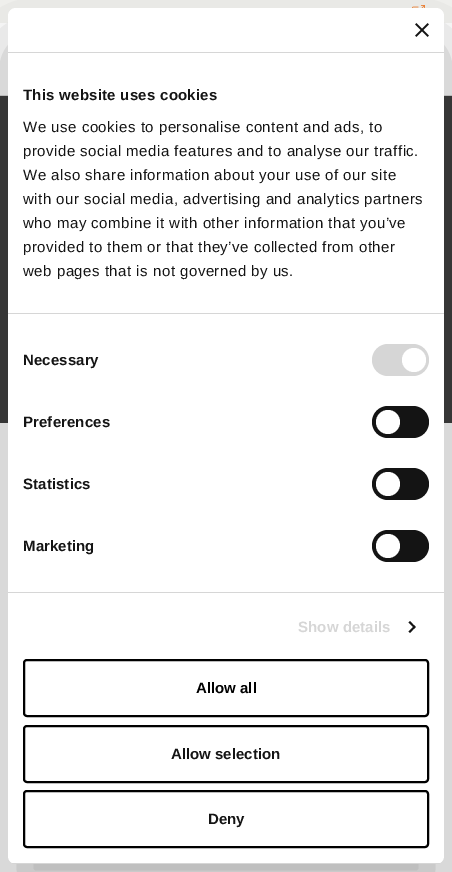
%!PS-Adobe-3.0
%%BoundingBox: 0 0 452 872
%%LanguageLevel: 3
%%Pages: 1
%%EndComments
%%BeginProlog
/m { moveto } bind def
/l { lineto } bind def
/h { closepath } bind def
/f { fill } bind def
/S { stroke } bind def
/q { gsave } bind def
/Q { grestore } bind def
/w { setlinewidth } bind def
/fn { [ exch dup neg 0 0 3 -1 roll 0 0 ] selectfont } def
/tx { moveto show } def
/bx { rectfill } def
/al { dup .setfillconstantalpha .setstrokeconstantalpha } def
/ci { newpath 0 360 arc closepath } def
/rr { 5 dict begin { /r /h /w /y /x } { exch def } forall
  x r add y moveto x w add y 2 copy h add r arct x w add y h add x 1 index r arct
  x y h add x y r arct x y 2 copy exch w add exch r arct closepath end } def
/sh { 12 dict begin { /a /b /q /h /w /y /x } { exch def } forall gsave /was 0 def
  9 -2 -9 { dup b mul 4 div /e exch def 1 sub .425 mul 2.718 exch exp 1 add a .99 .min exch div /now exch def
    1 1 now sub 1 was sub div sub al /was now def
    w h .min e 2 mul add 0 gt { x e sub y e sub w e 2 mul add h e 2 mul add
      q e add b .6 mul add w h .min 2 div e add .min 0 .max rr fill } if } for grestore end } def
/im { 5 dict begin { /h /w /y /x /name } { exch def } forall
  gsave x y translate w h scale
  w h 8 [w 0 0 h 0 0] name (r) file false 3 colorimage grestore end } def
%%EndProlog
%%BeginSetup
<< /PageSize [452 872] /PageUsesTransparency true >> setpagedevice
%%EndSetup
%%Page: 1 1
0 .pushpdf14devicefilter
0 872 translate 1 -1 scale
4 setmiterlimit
1 setgray
0 0 452 872 bx
0.855 setgray
0 95 452 1 bx
0.957 0.957 0.945 setrgbcolor
0 0 452 23 bx
(image0.raw) 412 5 13 3 im
0.251 setgray
0 96 452 327 bx
0 setgray
8 40 436 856 8 34 0.3 sh
1 setgray
8 8 436 856 8 rr f
0.839 setgray
8 52 436 1 bx
(image1.raw) 415 23 14 14 im
8 313 436 1 bx
/LiberationSans-Bold 15 fn
0.078 setgray
23 100 m 0.25 0 (This website uses cookies) ashow
/LiberationSans-Regular 15 fn
23 132 m 0.5 0 (We use cookies to personalise content and ads, to) ashow
23 156 m 0.5 0 (provide social media features and to analyse our traffic.) ashow
23 180 m 0.5 0 (We also share information about your use of our site) ashow
23 204 m 0.5 0 (with our social media, advertising and analytics partners) ashow
23 228 m 0.5 0 (who may combine it with other information that you’ve) ashow
23 252 m 0.5 0 (provided to them or that they’ve collected from other) ashow
23 276 m 0.5 0 (web pages that is not governed by us.) ashow
0.839 setgray
8 592 436 1 bx
/LiberationSans-Bold 15 fn
0.078 setgray
23 365 m 0.1 0 (Necessary) ashow
0.839 setgray
372 344 57 32 16 rr f
1 setgray
414 360 12 ci f
0.078 setgray
23 427 m 0.1 0 (Preferences) ashow
372 406 57 32 16 rr f
1 setgray
388 422 12 ci f
0.078 setgray
23 489 m 0.1 0 (Statistics) ashow
372 468 57 32 16 rr f
1 setgray
388 484 12 ci f
0.078 setgray
23 551 m 0.1 0 (Marketing) ashow
372 530 57 32 16 rr f
1 setgray
388 546 12 ci f
0.839 setgray
298 632 m 0.1 0 (Show details) ashow
0.078 setgray
410 621 m 415.5 627 l 414.5 628.5 l 408.5 622.5 l h f
414.5 625.5 m 415.5 627 l 410 633 l 408.5 631.5 l h f
q
8 8 436 856 8 rr clip newpath
0.839 setgray
8 863 436 1 bx
Q
0 setgray
2 w
24 660 404 56 3 rr S
(Allow all) 196 693 tx
24 726 404 56 3 rr S
0.078 setgray
(Allow selection) 171 759 tx
0 setgray
24 791 404 56 3 rr S
0.078 setgray
(Deny) 208 824 tx
.poppdf14devicefilter showpage
%%EOF
